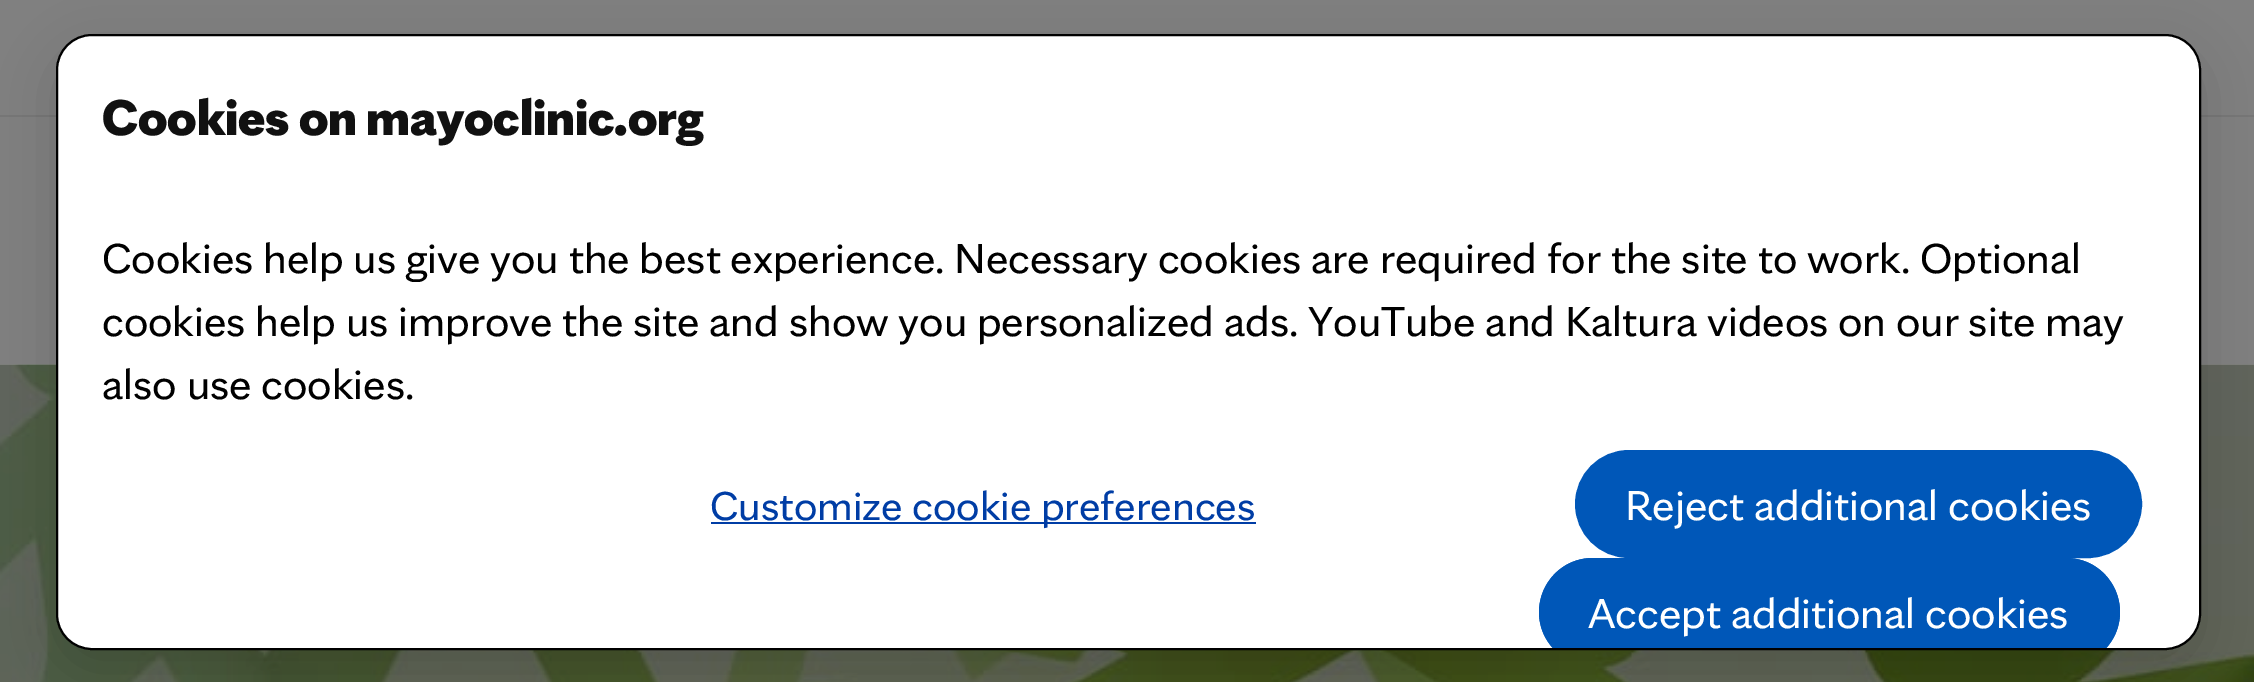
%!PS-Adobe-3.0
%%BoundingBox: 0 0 2254 682
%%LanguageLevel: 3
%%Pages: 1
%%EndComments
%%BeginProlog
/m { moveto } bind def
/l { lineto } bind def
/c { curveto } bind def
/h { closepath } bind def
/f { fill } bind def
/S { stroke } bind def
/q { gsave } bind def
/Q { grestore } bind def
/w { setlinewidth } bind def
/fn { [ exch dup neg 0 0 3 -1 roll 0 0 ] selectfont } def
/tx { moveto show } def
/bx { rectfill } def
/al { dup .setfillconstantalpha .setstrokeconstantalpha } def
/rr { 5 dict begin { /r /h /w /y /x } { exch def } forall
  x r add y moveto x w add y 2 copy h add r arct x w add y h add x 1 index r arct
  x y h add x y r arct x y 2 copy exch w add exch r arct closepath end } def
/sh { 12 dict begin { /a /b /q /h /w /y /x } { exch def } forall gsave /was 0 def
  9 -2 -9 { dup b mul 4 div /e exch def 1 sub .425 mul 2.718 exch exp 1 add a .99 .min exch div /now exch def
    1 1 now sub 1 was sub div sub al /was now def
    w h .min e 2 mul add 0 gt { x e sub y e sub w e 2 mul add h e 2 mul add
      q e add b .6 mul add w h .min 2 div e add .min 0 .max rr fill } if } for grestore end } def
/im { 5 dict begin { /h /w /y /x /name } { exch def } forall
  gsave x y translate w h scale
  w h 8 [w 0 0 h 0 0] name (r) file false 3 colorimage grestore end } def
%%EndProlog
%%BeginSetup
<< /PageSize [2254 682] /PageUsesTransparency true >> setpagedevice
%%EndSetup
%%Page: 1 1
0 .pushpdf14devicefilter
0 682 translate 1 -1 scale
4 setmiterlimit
0.502 setgray
0 0 2254 682 bx
0.463 setgray
0 115 2254 2 bx
(image0.raw) 0 364 2254 318 im
0 setgray
56 52 2145 616 36 27 0.16 sh
1 setgray
57 35 2143 614 35 rr q f Q
0 setgray
2 w
S
/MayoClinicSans-Black 54 fn
0.067 setgray
(Cookies on mayoclinic.org) 102 135 tx
/MayoClinicSans-Regular 45 fn
0 setgray
(Cookies help us give you the best experience. Necessary cookies are required for the site to work. Optional) 102 273 tx
(cookies help us improve the site and show you personalized ads. YouTube and Kaltura videos on our site may) 102 336 tx
(also use cookies.) 102 399 tx
0 0.239 0.647 setrgbcolor
711 522 545 2 bx
/MayoClinicSans-Regular 43.25 fn
(Customize cookie preferences) 710 520 tx
0 0.341 0.722 setrgbcolor
1577.5 452.5 562 103 51.5 rr q f Q
5 w
S
/MayoClinicSans-Regular 45 fn
1 setgray
(Reject additional cookies) 1625 520 tx
q
59 36 2139 612 34 rr clip newpath
0 0.341 0.722 setrgbcolor
1539 558 581 108 54 rr f
Q
0 0.341 0.722 setrgbcolor
1593 558 m 1546 558 1522 614 1553 648 c 1560 648 l 1550 639 1544 626 1544 612 c 1544 585 1566 563 1593 563 c 2066 563 l 2093 563 2115 585 2115 612 c 2115 626 2109 639 2099 648 c 2106 648 l 2137 614 2113 558 2066 558 c h f
1 setgray
(Accept additional cookies) 1588 628 tx
.poppdf14devicefilter showpage
%%EOF
